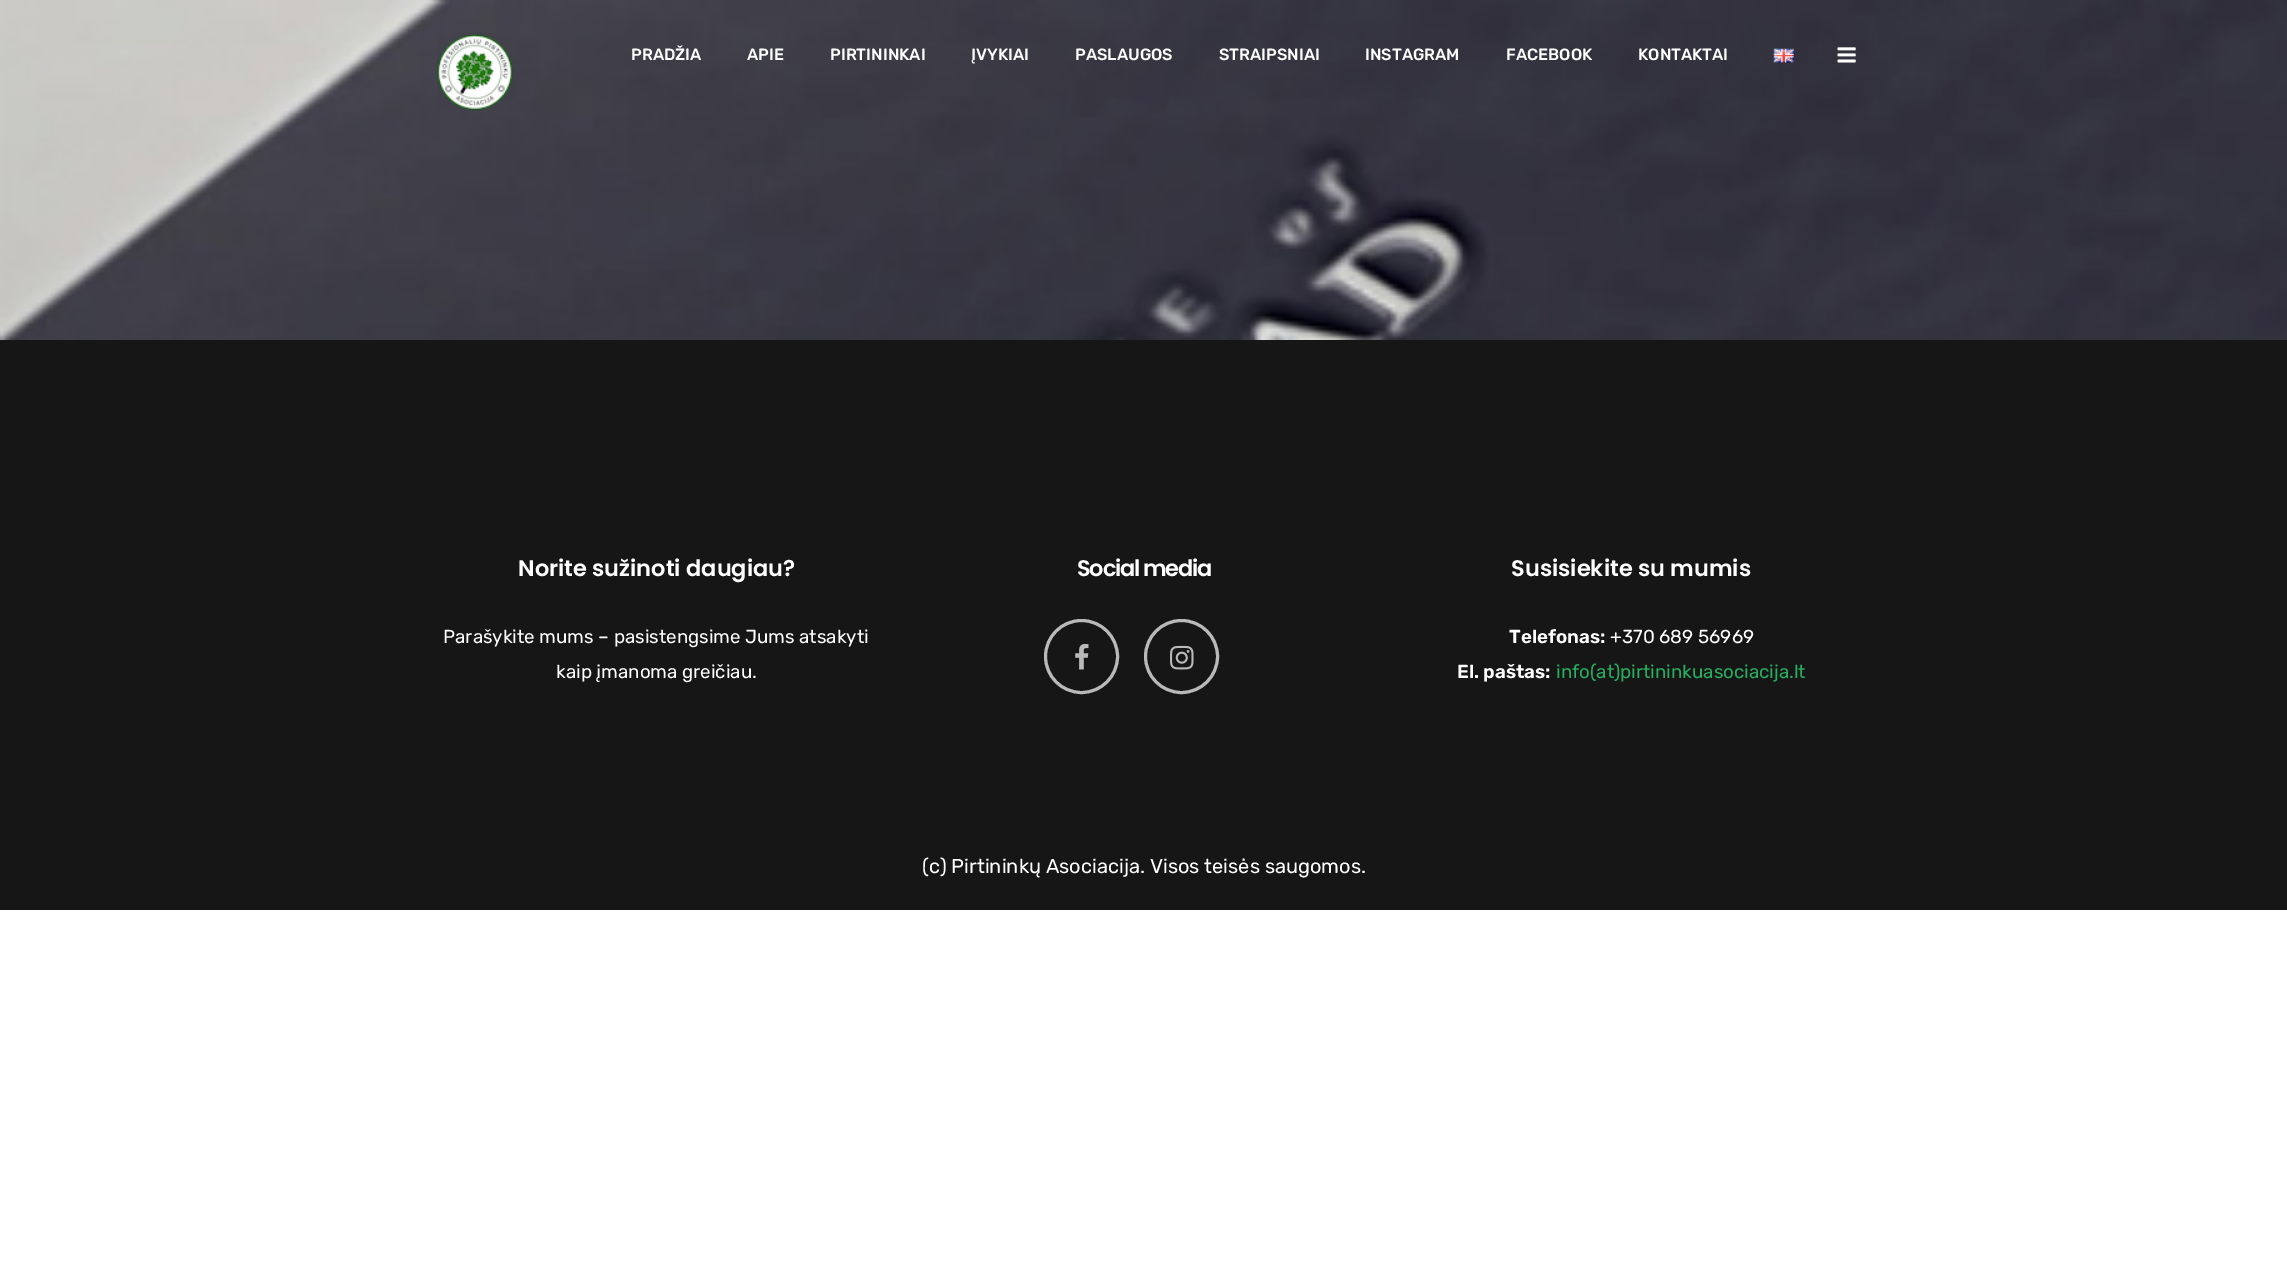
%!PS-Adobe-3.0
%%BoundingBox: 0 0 2287 1283
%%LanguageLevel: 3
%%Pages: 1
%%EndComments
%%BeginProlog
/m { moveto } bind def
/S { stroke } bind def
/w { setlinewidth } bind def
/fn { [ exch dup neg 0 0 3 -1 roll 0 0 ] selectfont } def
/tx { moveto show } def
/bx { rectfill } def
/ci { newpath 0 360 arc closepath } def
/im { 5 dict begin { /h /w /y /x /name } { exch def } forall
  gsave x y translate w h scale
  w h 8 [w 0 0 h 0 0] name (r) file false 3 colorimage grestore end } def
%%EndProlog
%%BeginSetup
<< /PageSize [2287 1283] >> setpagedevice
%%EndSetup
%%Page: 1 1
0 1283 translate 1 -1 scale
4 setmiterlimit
1 setgray
0 0 2287 1283 bx
(image0.raw) 0 0 2287 340 im
(image1.raw) 437 34 76 77 im
/Rubik-Medium 16.25 fn
(PRADŽIA) 631 60 tx
(APIE) 747 60 tx
(PIRTININKAI) 830 60 tx
(ĮVYKIAI) 971 60 tx
(PASLAUGOS) 1075 60 tx
(STRAIPSNIAI) 1219 60 tx
(INSTAGRAM) 1365 60 tx
(FACEBOOK) 1506 60 tx
(KONTAKTAI) 1638 60 tx
(image2.raw) 1773 48 21 15 im
(image3.raw) 1837 47 19 16 im
0.086 setgray
0 340 2287 570 bx
/Poppins-SemiBold 22.5 fn
1 setgray
(Norite sužinoti daugiau?) 518 576 tx
/Rubik-Regular 18.75 fn
(Parašykite mums – pasistengsime Jums atsakyti) 443 643 tx
(kaip įmanoma greičiau.) 556 678 tx
/Poppins-SemiBold 22.5 fn
1077 576 m -1.25 0 (Social media) ashow
0.725 setgray
3 w
1081.5 656.5 36 ci S
(image4.raw) 1075 643 14 27 im
1181.5 656.5 36 ci S
(image5.raw) 1170 645 24 25 im
1 setgray
(Susisiekite su mumis) 1511 576 tx
/Rubik-SemiBold 18.75 fn
(Telefonas:) 1509 643 tx
/Rubik-Regular 18.75 fn
(+370 689 56969) 1610 643 tx
/Rubik-SemiBold 18.75 fn
(El. paštas:) 1457 678 tx
/Rubik-Regular 18.75 fn
0.153 0.682 0.376 setrgbcolor
(info\(at\)pirtininkuasociacija.lt) 1556 678 tx
/Rubik-Regular 20 fn
1 setgray
(\(c\) Pirtininkų Asociacija. Visos teisės saugomos.) 922 873 tx
showpage
%%EOF
